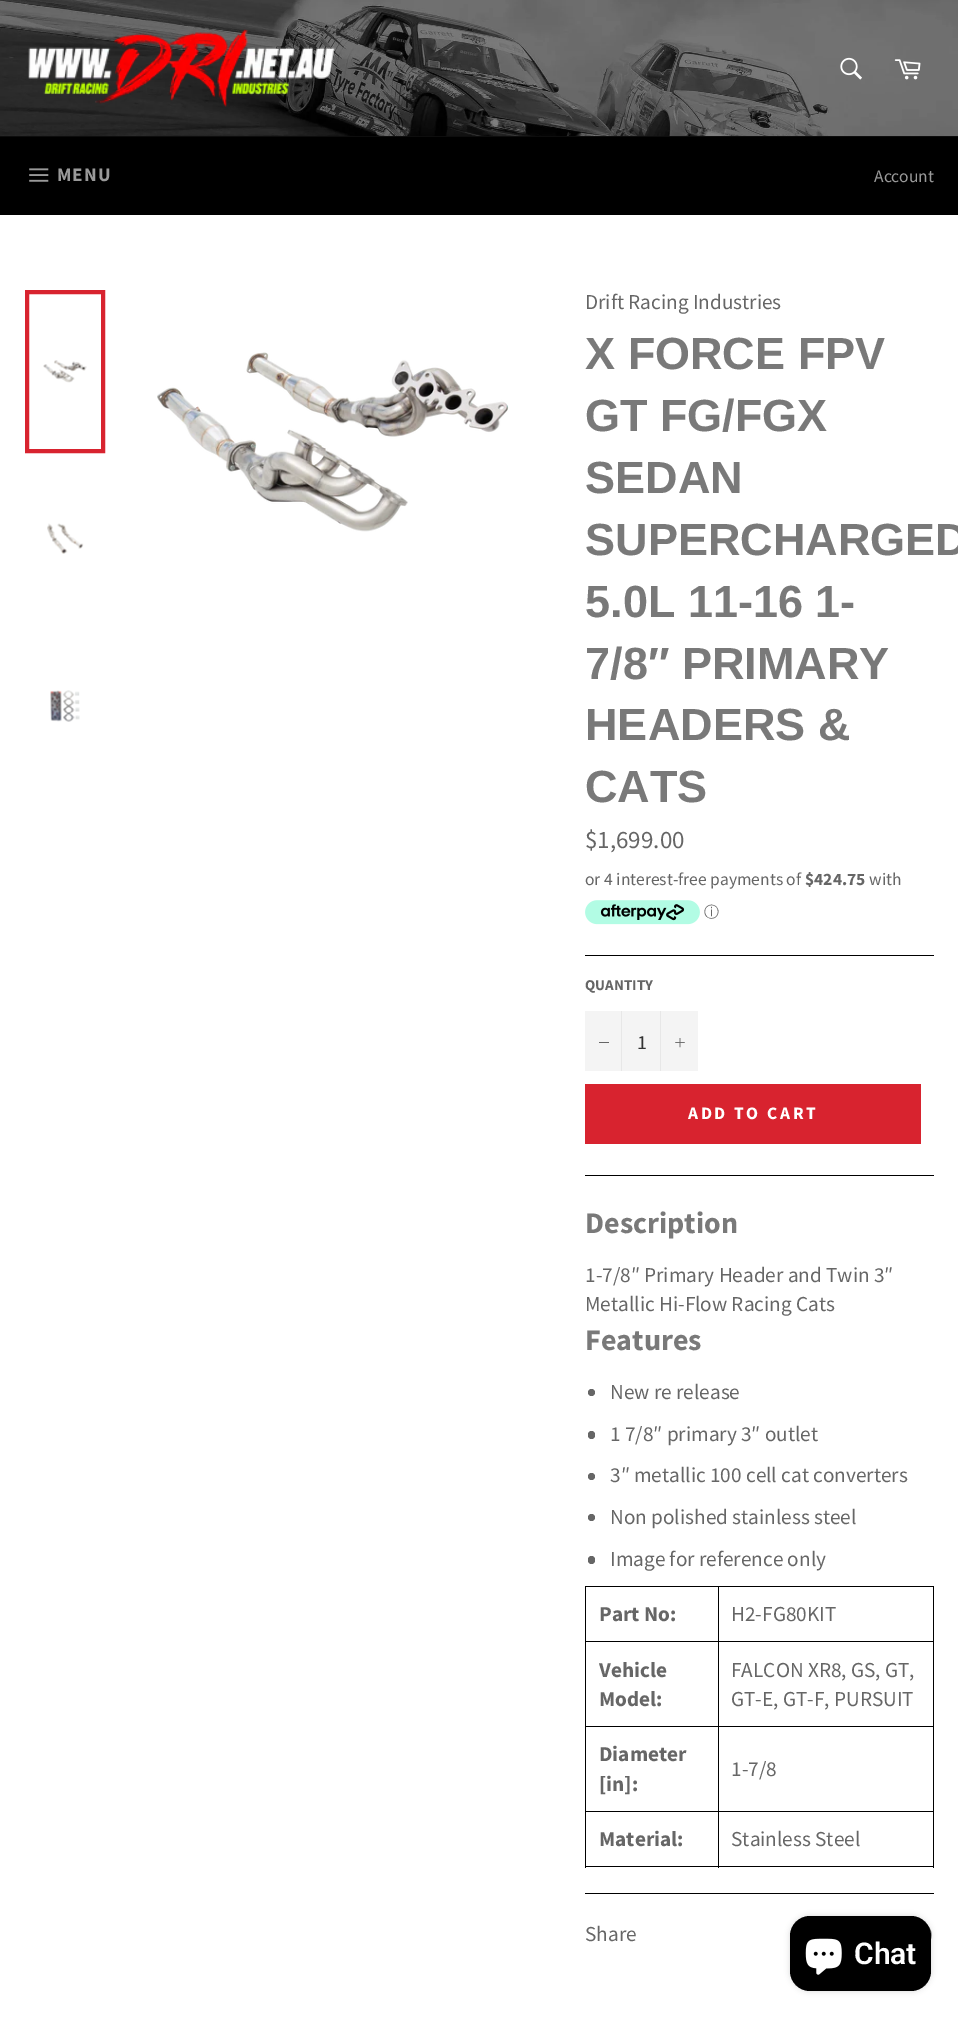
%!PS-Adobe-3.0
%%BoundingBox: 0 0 958 2017
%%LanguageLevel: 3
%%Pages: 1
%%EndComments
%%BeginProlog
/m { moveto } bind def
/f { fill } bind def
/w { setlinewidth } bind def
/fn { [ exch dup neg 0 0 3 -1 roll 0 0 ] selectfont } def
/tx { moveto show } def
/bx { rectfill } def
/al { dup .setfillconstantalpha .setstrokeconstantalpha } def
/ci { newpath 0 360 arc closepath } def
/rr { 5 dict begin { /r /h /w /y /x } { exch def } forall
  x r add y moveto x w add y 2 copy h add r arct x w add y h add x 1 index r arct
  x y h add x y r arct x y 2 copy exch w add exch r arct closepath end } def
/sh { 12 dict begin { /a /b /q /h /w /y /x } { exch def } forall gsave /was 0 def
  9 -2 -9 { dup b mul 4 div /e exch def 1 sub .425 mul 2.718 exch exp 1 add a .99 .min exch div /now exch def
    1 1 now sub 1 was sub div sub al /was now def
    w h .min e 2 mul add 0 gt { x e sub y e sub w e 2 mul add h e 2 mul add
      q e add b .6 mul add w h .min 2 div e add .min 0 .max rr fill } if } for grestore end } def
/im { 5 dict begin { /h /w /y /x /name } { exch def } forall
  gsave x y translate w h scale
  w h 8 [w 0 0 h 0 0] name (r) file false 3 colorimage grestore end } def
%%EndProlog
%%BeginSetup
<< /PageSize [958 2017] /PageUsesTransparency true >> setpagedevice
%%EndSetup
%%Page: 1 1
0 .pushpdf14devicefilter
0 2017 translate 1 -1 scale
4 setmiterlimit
1 setgray
0 0 958 2017 bx
(image0.raw) 0 0 958 136 im
(image1.raw) 28 29 307 78 im
(image2.raw) 840 57 22 23 im
(image3.raw) 894 59 27 21 im
0 setgray
0 137 958 78 bx
0.051 setgray
0 136 958 1 bx
(image4.raw) 29 168 20 14 im
/SourceSansPro-Bold 19 fn
0.6 setgray
57 181 m 1 0 (MENU) ashow
/SourceSansPro-Regular 17.5 fn
(Account) 874 182 tx
(image5.raw) 43 360 44 23 im
0.847 0.137 0.184 setrgbcolor
4 w
27 292 76 159 rectstroke
(image6.raw) 47 523 37 31 im
(image7.raw) 50 690 30 32 im
(image8.raw) 157 352 352 180 im
/SourceSansPro-Regular 21.25 fn
0.4 setgray
(Drift Racing Industries) 585 309 tx
/LiberationSans-Bold 45 fn
0.475 setgray
(X FORCE FPV) 585 369 tx
(GT FG/FGX) 585 431 tx
(SEDAN) 585 493 tx
(SUPERCHARGED) 585 555 tx
(5.0L 11-16 1-) 585 617 tx
(7/8″ PRIMARY) 585 679 tx
(HEADERS &) 585 740 tx
(CATS) 585 802 tx
/SourceSansPro-Regular 25 fn
0.4 setgray
($1,699.00) 585 848 tx
/SourceSansPro-Regular 17.5 fn
(or 4 interest-free payments of) 585 885 tx
/SourceSansPro-Bold 17.5 fn
($424.75) 805 885 tx
/SourceSansPro-Regular 17.5 fn
(with) 869 885 tx
(image9.raw) 585 900 115 25 im
/WenQuanYiZenHei-Medium 15 fn
(ⓘ) 704 917 tx
0 setgray
585 955 349 1 bx
/SourceSansPro-Bold 15 fn
0.4 setgray
(QUANTITY) 585 990 tx
0.957 setgray
585 1011 113 60 bx
0.906 setgray
621 1011 1 60 bx
0.4 setgray
599 1042 10 1 bx
/SourceSansPro-Regular 20 fn
0.2 setgray
(1) 637 1049 tx
0.906 setgray
660 1011 1 60 bx
(image10.raw) 675 1038 10 10 im
0.847 0.137 0.184 setrgbcolor
585 1084 336 60 bx
/SourceSansPro-Bold 17.5 fn
1 setgray
688 1119 m 2.6 0 (ADD TO CART) ashow
0 setgray
585 1175 349 1 bx
/SourceSansPro-Bold 30 fn
0.475 setgray
(Description) 585 1233 tx
/SourceSansPro-Regular 21.25 fn
0.4 setgray
(1-7/8″ Primary Header and Twin 3″) 585 1282 tx
(Metallic Hi-Flow Racing Cats) 585 1311 tx
/SourceSansPro-Bold 30 fn
0.475 setgray
(Features) 585 1350 tx
0.4 setgray
591.5 1392.5 3.5 ci f
/SourceSansPro-Regular 21.25 fn
(New re release) 610 1399 tx
588 1431 7 8 3.5 rr f
(1 7/8″ primary 3″ outlet) 610 1441 tx
591.5 1476.5 3.5 ci f
(3″ metallic 100 cell cat converters) 610 1482 tx
591.5 1517.5 3.5 ci f
(Non polished stainless steel) 610 1524 tx
588 1556 7 8 3.5 rr f
(Image for reference only) 610 1566 tx
0 setgray
718 1586 216 1 bx
718 1641 216 1 bx
718 1726 216 1 bx
718 1811 216 1 bx
933 1811 1 57 bx
718 1866 216 1 bx
718 1811 1 57 bx
585 1811 134 1 bx
718 1726 1 87 bx
585 1726 134 1 bx
718 1641 1 87 bx
585 1641 134 1 bx
718 1586 1 57 bx
585 1586 134 1 bx
585 1866 134 1 bx
585 1811 1 57 bx
585 1726 1 87 bx
585 1641 1 87 bx
585 1586 1 57 bx
/SourceSansPro-Bold 21.25 fn
0.4 setgray
(Part No:) 599 1621 tx
0 setgray
933 1726 1 87 bx
933 1641 1 87 bx
933 1586 1 57 bx
/SourceSansPro-Regular 21.25 fn
0.4 setgray
(H2-FG80KIT) 731 1621 tx
/SourceSansPro-Bold 21.25 fn
(Vehicle) 599 1677 tx
(Model:) 599 1706 tx
/SourceSansPro-Regular 21.25 fn
(FALCON XR8, GS, GT,) 731 1677 tx
(GT-E, GT-F, PURSUIT) 731 1706 tx
/SourceSansPro-Bold 21.25 fn
(Diameter) 599 1761 tx
([in]:) 599 1791 tx
/SourceSansPro-Regular 21.25 fn
(1-7/8) 731 1776 tx
/SourceSansPro-Bold 21.25 fn
(Material:) 599 1846 tx
/SourceSansPro-Regular 21.25 fn
(Stainless Steel) 731 1846 tx
0 setgray
585 1893 349 1 bx
0.4 setgray
(Share) 585 1941 tx
(image11.raw) 927 1925 5 15 im
0 setgray
790 1916 141 75 20 3 0.15 sh
790 1916 141 75 20 rr f
(image12.raw) 805 1938 37 37 im
/Roboto-SemiBold 30 fn
1 setgray
(Chat) 854 1964 tx
.poppdf14devicefilter showpage
%%EOF
